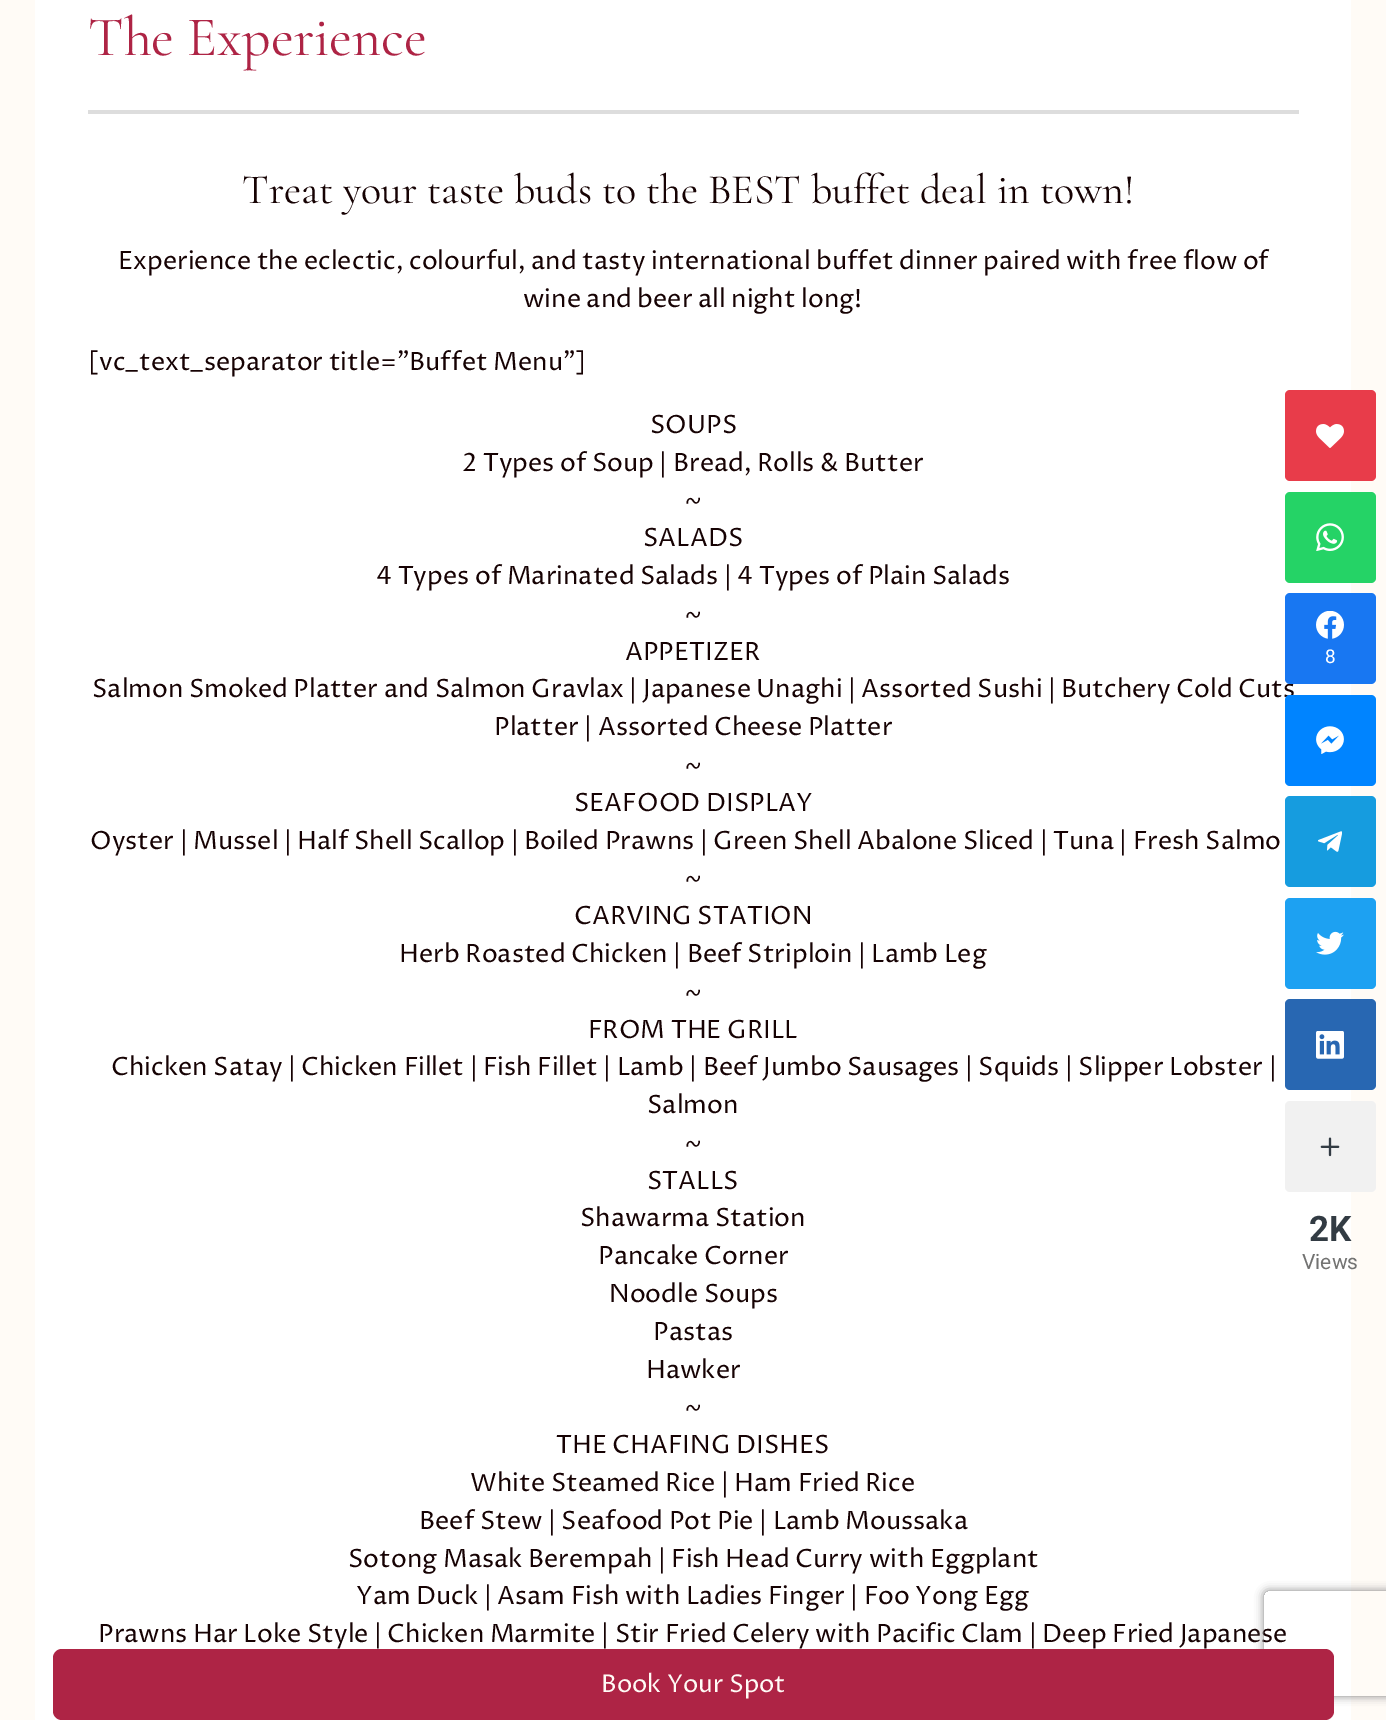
%!PS-Adobe-3.0
%%BoundingBox: 0 0 1386 1720
%%LanguageLevel: 3
%%Pages: 1
%%EndComments
%%BeginProlog
/m { moveto } bind def
/l { lineto } bind def
/c { curveto } bind def
/h { closepath } bind def
/f { fill } bind def
/q { gsave } bind def
/Q { grestore } bind def
/fn { [ exch dup neg 0 0 3 -1 roll 0 0 ] selectfont } def
/tx { moveto show } def
/bx { rectfill } def
/al { dup .setfillconstantalpha .setstrokeconstantalpha } def
/rr { 5 dict begin { /r /h /w /y /x } { exch def } forall
  x r add y moveto x w add y 2 copy h add r arct x w add y h add x 1 index r arct
  x y h add x y r arct x y 2 copy exch w add exch r arct closepath end } def
/sh { 12 dict begin { /a /b /q /h /w /y /x } { exch def } forall gsave /was 0 def
  9 -2 -9 { dup b mul 4 div /e exch def 1 sub .425 mul 2.718 exch exp 1 add a .99 .min exch div /now exch def
    1 1 now sub 1 was sub div sub al /was now def
    w h .min e 2 mul add 0 gt { x e sub y e sub w e 2 mul add h e 2 mul add
      q e add b .6 mul add w h .min 2 div e add .min 0 .max rr fill } if } for grestore end } def
/im { 5 dict begin { /h /w /y /x /name } { exch def } forall
  gsave x y translate w h scale
  w h 8 [w 0 0 h 0 0] name (r) file false 3 colorimage grestore end } def
%%EndProlog
%%BeginSetup
<< /PageSize [1386 1720] /PageUsesTransparency true >> setpagedevice
%%EndSetup
%%Page: 1 1
0 .pushpdf14devicefilter
0 1720 translate 1 -1 scale
4 setmiterlimit
1 0.984 0.965 setrgbcolor
0 0 1386 1720 bx
1 setgray
35 0 1316 1720 bx
/CormorantGaramond-Regular 56 fn
0.682 0.141 0.271 setrgbcolor
(The Experience) 88 55 tx
0.867 setgray
88 110 1211 4 bx
/CormorantGaramond-Regular 42 fn
0.086 0.008 0.012 setrgbcolor
(Treat your taste buds to the BEST buffet deal in town!) 242 203 tx
/ProzaLibre-Regular 25.2 fn
(Experience the eclectic, colourful, and tasty international buffet dinner paired with free flow of) 118 269 tx
(wine and beer all night long!) 523 307 tx
([vc_text_separator title=”Buffet Menu”]) 88 370 tx
(SOUPS) 650 433 tx
(2 Types of Soup | Bread, Rolls & Butter) 462 471 tx
(~) 685 508 tx
(SALADS) 643 546 tx
(4 Types of Marinated Salads | 4 Types of Plain Salads) 376 584 tx
(~) 685 622 tx
(APPETIZER) 625 660 tx
(Salmon Smoked Platter and Salmon Gravlax | Japanese Unaghi | Assorted Sushi | Butchery Cold Cuts) 92 697 tx
(Platter | Assorted Cheese Platter) 494 735 tx
(~) 685 773 tx
(SEAFOOD DISPLAY) 574 811 tx
(Oyster | Mussel | Half Shell Scallop | Boiled Prawns | Green Shell Abalone Sliced | Tuna | Fresh Salmo) 90 849 tx
(~) 685 886 tx
(CARVING STATION) 574 924 tx
(Herb Roasted Chicken | Beef Striploin | Lamb Leg) 399 962 tx
(~) 685 1000 tx
(FROM THE GRILL) 588 1038 tx
(Chicken Satay | Chicken Fillet | Fish Fillet | Lamb | Beef Jumbo Sausages | Squids | Slipper Lobster |) 111 1075 tx
(Salmon) 647 1113 tx
(~) 685 1151 tx
(STALLS) 647 1189 tx
(Shawarma Station) 580 1226 tx
(Pancake Corner) 598 1264 tx
(Noodle Soups) 609 1302 tx
(Pastas) 653 1340 tx
(Hawker) 646 1378 tx
(~) 685 1415 tx
(THE CHAFING DISHES) 556 1453 tx
(White Steamed Rice | Ham Fried Rice) 470 1491 tx
(Beef Stew | Seafood Pot Pie | Lamb Moussaka) 419 1529 tx
(Sotong Masak Berempah | Fish Head Curry with Eggplant) 348 1567 tx
(Yam Duck | Asam Fish with Ladies Finger | Foo Yong Egg) 356 1604 tx
(Prawns Har Loke Style | Chicken Marmite | Stir Fried Celery with Pacific Clam | Deep Fried Japanese) 98 1642 tx
q
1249 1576 m 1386 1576 l 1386 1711 l 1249 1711 l h 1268 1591 m 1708 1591 l 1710 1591 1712 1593 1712 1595 c 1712 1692 l 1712 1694 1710 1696 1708 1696 c 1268 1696 l 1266 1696 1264 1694 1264 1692 c 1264 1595 l 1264 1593 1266 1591 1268 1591 c h eoclip newpath
0.502 setgray
1264 1591 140 105 4 4.5 1 sh
Q
0.682 0.141 0.271 setrgbcolor
53 1649 1281 71 9 rr f
/ProzaLibre-Regular 24.5 fn
1 0.984 0.965 setrgbcolor
(Book Your Spot) 601 1692 tx
0.91 0.235 0.29 setrgbcolor
1285 390 91 91 5 rr f
(image0.raw) 1316 424 28 24 im
0.145 0.827 0.4 setrgbcolor
1285 492 91 91 5 rr f
(image1.raw) 1316 523 28 28 im
0.094 0.467 0.949 setrgbcolor
1285 593 91 91 5 rr f
(image2.raw) 1316 611 28 28 im
/Roboto-Regular 19 fn
1 setgray
(8) 1325 663 tx
0 0.518 1 setrgbcolor
1285 695 91 91 5 rr f
(image3.raw) 1316 726 28 28 im
0.086 0.612 0.875 setrgbcolor
1285 796 91 91 5 rr f
(image4.raw) 1318 831 24 21 im
0.114 0.631 0.949 setrgbcolor
1285 898 91 91 5 rr f
(image5.raw) 1316 931 28 24 im
0.157 0.404 0.698 setrgbcolor
1285 999 91 91 5 rr f
(image6.raw) 1316 1031 28 28 im
0.945 setgray
1285 1101 91 91 5 rr f
(image7.raw) 1320 1137 20 20 im
/Roboto-Bold 35 fn
0.196 0.231 0.263 setrgbcolor
(2K) 1309 1241 tx
/Roboto-Regular 21 fn
0.451 0.451 0.447 setrgbcolor
(Views) 1302 1269 tx
.poppdf14devicefilter showpage
%%EOF
